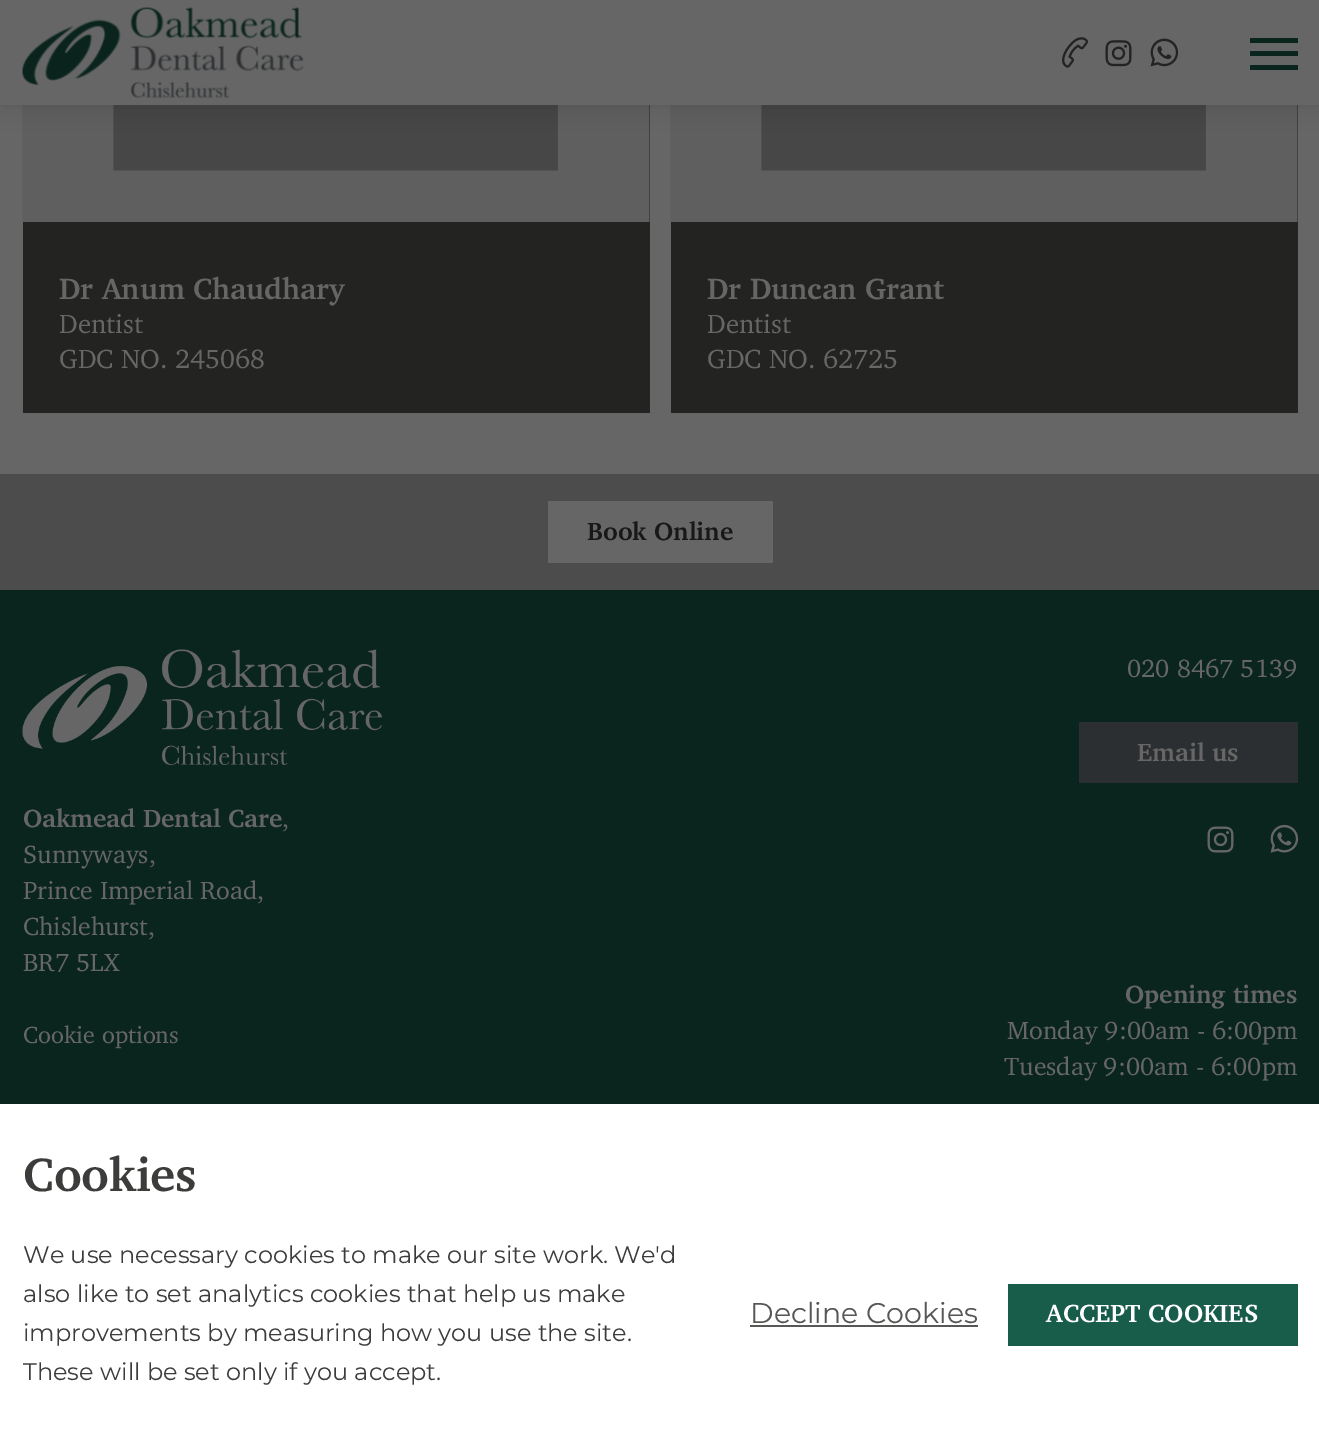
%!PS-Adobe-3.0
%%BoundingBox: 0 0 1319 1437
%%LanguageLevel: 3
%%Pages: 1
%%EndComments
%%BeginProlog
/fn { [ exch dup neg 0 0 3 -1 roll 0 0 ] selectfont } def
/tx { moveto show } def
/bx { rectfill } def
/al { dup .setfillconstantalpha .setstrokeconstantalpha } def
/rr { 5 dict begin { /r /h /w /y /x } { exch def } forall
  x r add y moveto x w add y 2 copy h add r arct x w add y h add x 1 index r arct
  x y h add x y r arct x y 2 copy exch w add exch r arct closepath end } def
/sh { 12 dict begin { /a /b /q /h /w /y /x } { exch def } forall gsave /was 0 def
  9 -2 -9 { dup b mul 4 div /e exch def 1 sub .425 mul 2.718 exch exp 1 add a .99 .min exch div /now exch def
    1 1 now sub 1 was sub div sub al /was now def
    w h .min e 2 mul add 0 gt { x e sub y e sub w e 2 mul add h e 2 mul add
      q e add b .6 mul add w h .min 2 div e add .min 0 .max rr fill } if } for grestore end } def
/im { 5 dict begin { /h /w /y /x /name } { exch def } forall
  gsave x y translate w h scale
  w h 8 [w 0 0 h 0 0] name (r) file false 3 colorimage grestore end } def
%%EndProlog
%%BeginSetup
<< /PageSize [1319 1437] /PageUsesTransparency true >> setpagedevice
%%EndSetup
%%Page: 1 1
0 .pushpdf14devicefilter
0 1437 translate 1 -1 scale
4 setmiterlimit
0.4 setgray
0 0 1319 1437 bx
0.137 0.137 0.133 setrgbcolor
23 105 627 308 bx
(image4.raw) 22 105 628 117 im
671 105 627 308 bx
(image4.raw) 670 105 628 117 im
0 setgray
0 0 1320 105 0 15 0.15 sh
0.4 setgray
0 0 1319 105 bx
(image0.raw) 22 7 282 91 im
(image1.raw) 1062 37 26 31 im
(image2.raw) 1105 40 27 27 im
(image3.raw) 1150 38 29 29 im
0.039 0.145 0.118 setrgbcolor
1250 51 48 5 bx
1250 38 48 5 bx
1250 65 48 5 bx
/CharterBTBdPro-Bold 30 fn
0.4 setgray
(Dr Anum Chaudhary) 59 299 tx
/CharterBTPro-Regular 27 fn
(Dentist) 59 333 tx
(GDC NO. 245068) 59 368 tx
/CharterBTBdPro-Bold 30 fn
(Dr Duncan Grant) 707 299 tx
/CharterBTPro-Regular 27 fn
(Dentist) 707 333 tx
(GDC NO. 62725) 707 368 tx
0.298 setgray
0 474 1319 116 bx
0.4 setgray
548 501 225 62 bx
/CharterBTBdPro-Bold 25.5 fn
0.094 setgray
(Book Online) 587 540 tx
0.039 0.145 0.118 setrgbcolor
0 590 1319 514 bx
(image5.raw) 22 649 360 116 im
0.4 setgray
(Oakmead Dental Care) 23 827 tx
/CharterBTPro-Regular 25.5 fn
(,) 282 827 tx
(Sunnyways,) 23 863 tx
(Prince Imperial Road,) 23 899 tx
(Chislehurst,) 23 935 tx
(BR7 5LX) 23 971 tx
/CharterBTPro-Regular 24 fn
(Cookie options) 23 1043 tx
/CharterBTPro-Regular 25.5 fn
(020 8467 5139) 1127 677 tx
0.173 0.184 0.192 setrgbcolor
1079 722 219 61 bx
/CharterBTBdPro-Bold 25.5 fn
0.4 setgray
(Email us) 1137 761 tx
(image6.raw) 1207 826 27 27 im
(image7.raw) 1270 824 29 29 im
(Opening times) 1125 1003 tx
/CharterBTPro-Regular 25.5 fn
(Monday 9:00am - 6:00pm) 1007 1039 tx
(Tuesday 9:00am - 6:00pm) 1004 1075 tx
0 setgray
0 1104 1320 333 0 4 0.1 sh
1 setgray
0 1104 1319 333 bx
/CharterBTBdPro-Bold 48 fn
0.235 0.235 0.231 setrgbcolor
(Cookies) 23 1191 tx
/Montserrat-Regular 24 fn
(We use necessary cookies to make our site work. We'd) 23 1263 tx
(also like to set analytics cookies that help us make) 23 1302 tx
(improvements by measuring how you use the site.) 23 1341 tx
(These will be set only if you accept.) 23 1380 tx
/Montserrat-Regular 28.5 fn
0.341 0.341 0.337 setrgbcolor
(Decline Cookies) 750 1323 tx
750 1325 228 2 bx
0.094 0.361 0.29 setrgbcolor
1008 1284 290 62 bx
/CharterBTBdPro-Bold 25.5 fn
1 setgray
(ACCEPT COOKIES) 1046 1322 tx
.poppdf14devicefilter showpage
%%EOF
